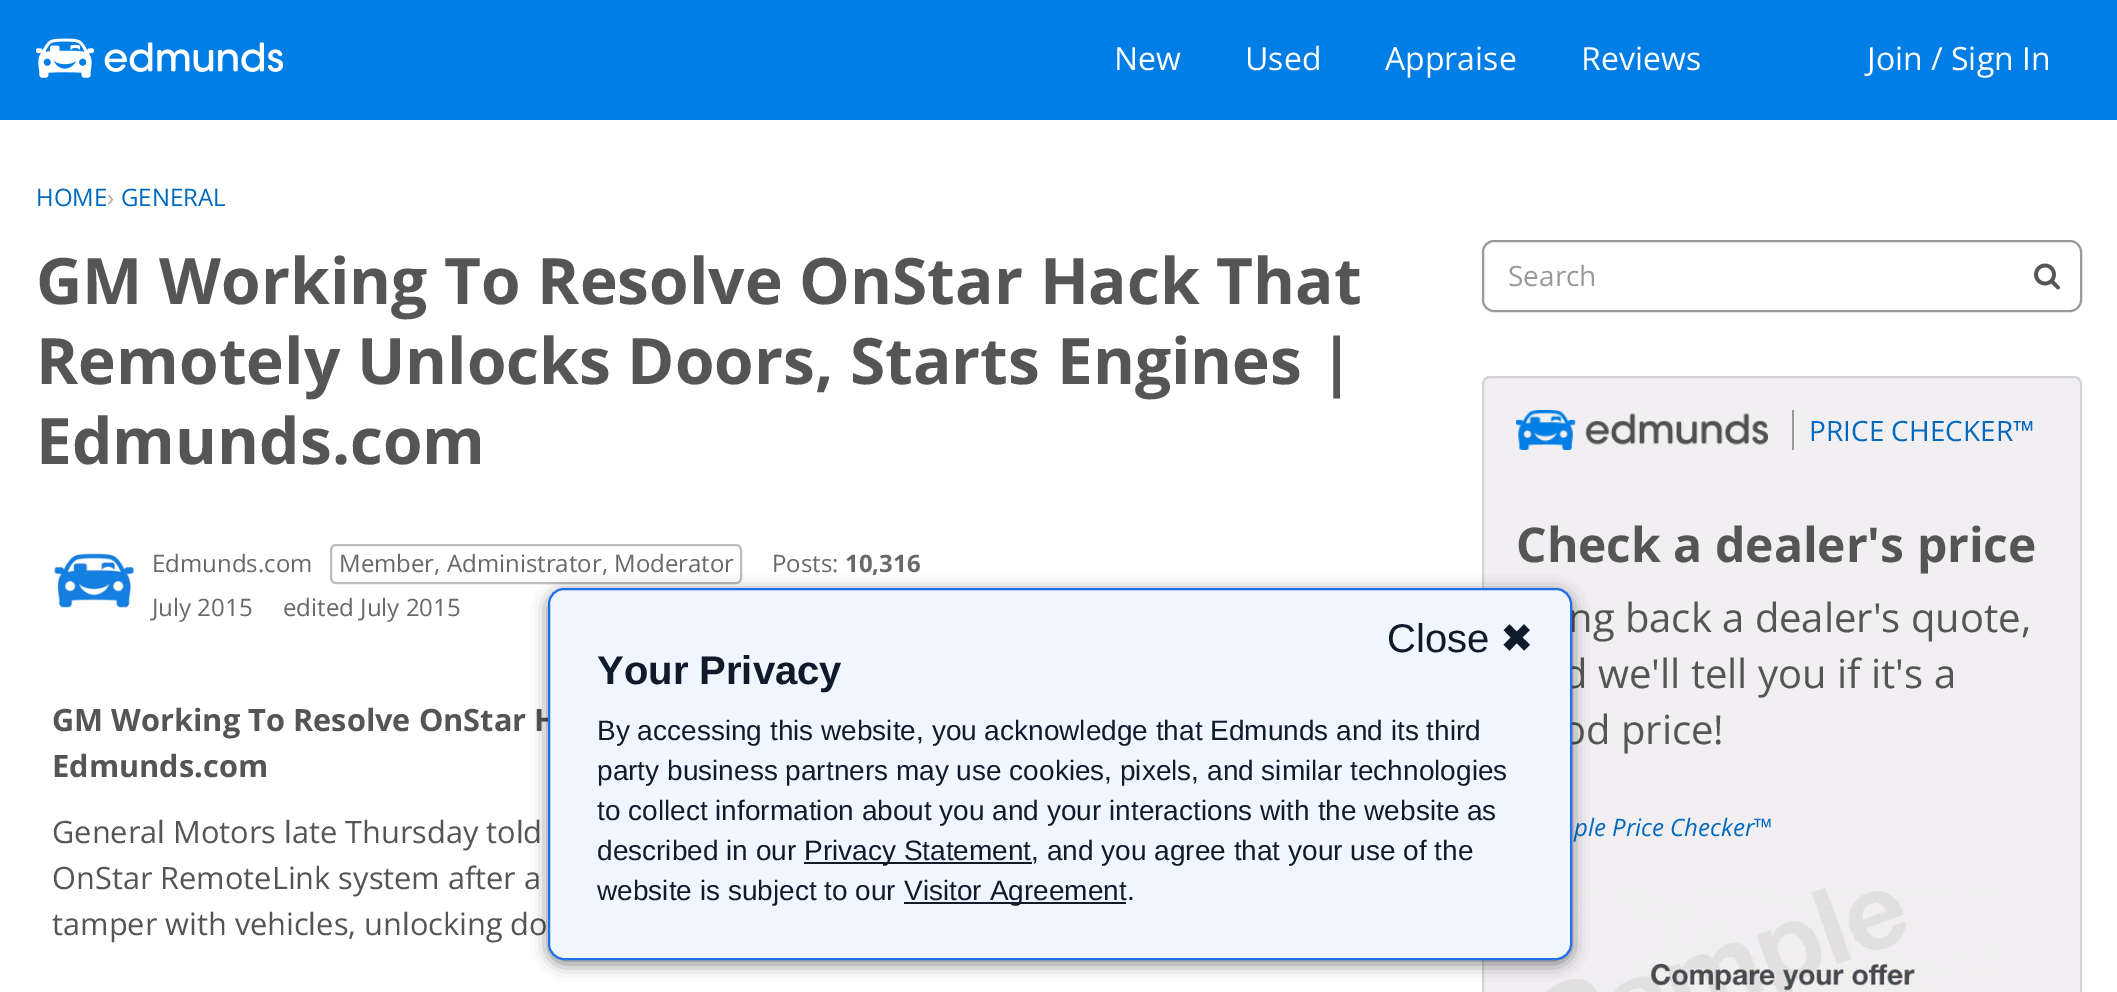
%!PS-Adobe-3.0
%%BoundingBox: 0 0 2117 992
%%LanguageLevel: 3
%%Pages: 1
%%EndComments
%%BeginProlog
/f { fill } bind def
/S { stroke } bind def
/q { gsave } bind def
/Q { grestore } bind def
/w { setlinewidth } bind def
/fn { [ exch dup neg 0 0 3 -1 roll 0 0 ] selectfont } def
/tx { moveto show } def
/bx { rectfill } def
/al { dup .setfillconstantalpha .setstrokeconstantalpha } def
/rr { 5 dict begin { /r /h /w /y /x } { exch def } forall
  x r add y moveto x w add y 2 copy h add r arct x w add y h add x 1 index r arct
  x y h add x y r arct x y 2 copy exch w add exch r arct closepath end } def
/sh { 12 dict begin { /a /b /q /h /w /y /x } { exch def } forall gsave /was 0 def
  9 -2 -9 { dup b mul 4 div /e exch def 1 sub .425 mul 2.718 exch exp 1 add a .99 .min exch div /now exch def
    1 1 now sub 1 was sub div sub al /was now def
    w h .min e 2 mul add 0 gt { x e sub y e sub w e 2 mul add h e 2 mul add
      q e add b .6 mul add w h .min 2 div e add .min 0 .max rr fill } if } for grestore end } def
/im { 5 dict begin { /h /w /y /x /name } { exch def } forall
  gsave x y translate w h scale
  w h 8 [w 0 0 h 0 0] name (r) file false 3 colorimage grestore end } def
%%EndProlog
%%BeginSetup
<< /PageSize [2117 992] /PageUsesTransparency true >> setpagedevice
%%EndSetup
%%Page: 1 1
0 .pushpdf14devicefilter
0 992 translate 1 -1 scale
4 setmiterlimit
1 setgray
0 0 2117 992 bx
0 0.494 0.898 setrgbcolor
0 0 2117 120 bx
(image0.raw) 36 38 248 40 im
/OpenSans-Regular 32 fn
1 setgray
(New) 1114 70 tx
(Used) 1245 70 tx
(Appraise) 1385 70 tx
(Reviews) 1581 70 tx
(Join / Sign In) 1867 70 tx
/OpenSans-Regular 24 fn
0 0.412 0.749 setrgbcolor
(HOME) 36 206 tx
0.667 setgray
(›) 107 206 tx
0 0.412 0.749 setrgbcolor
(GENERAL) 121 206 tx
/OpenSans-Bold 64 fn
0.333 setgray
(GM Working To Resolve OnStar Hack That) 36 304 tx
(Remotely Unlocks Doors, Starts Engines |) 36 384 tx
(Edmunds.com) 36 464 tx
(image1.raw) 54 553 81 55 im
/OpenSans-Regular 24 fn
0.412 setgray
(Edmunds.com) 152 572 tx
0.737 0.745 0.757 setrgbcolor
2 w
331 545 410 38 5 rr S
0.412 setgray
(Member, Administrator, Moderator) 339 572 tx
(Posts:) 772 572 tx
/OpenSans-Bold 24 fn
(10,316) 845 572 tx
/OpenSans-Regular 24 fn
(July 2015) 152 616 tx
(edited July 2015) 283 616 tx
/OpenSans-Bold 30.75 fn
0.333 setgray
(GM Working To Resolve OnStar H) 52 731 tx
(Edmunds.com) 52 777 tx
/OpenSans-Regular 30.75 fn
(General Motors late Thursday told) 52 843 tx
(OnStar RemoteLink system after a) 52 889 tx
(tamper with vehicles, unlocking do) 52 935 tx
0.6 setgray
1483 241 598 70 11 rr S
/OpenSans-Regular 28 fn
(Search) 1508 286 tx
(image2.raw) 2034 263 26 27 im
0.945 0.937 0.949 setrgbcolor
1482 376 600 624 8 rr f
0.12 al
0 setgray
1483 377 598 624 7 rr S
1 al
0.6 setgray
1792 410 2 40 bx
(image3.raw) 1516 410 252 40 im
0 0.412 0.749 setrgbcolor
(PRICE CHECKER™) 1809 441 tx
/OpenSans-Bold 48 fn
0.333 setgray
(Check a dealer's price) 1516 562 tx
/OpenSans-Regular 40 fn
(ng back a dealer's quote,) 1568 632 tx
(d we'll tell you if it's a) 1563 688 tx
(od price!) 1562 744 tx
/OpenSans-Italic 24 fn
0 0.412 0.749 setrgbcolor
(ple Price Checker™) 1574 836 tx
(image4.raw) 1546 887 458 105 im
0 setgray
548 592 1024 372 16 8 0.5 sh
0.941 0.965 1 setrgbcolor
549 589 1022 370 15 rr q f Q
0.125 0.439 0.91 setrgbcolor
S
/LiberationSans-Regular 40 fn
0.059 0.102 0.165 setrgbcolor
(Close) 1387 652 tx
/DejaVuSans-Regular 40 fn
(✖) 1500 652 tx
/LiberationSans-Bold 40 fn
(Your Privacy) 597 684 tx
/LiberationSans-Regular 28 fn
(By accessing this website, you acknowledge that Edmunds and its third) 597 740 tx
(party business partners may use cookies, pixels, and similar technologies) 597 780 tx
(to collect information about you and your interactions with the website as) 597 820 tx
(described in our) 597 860 tx
804 862 228 2 bx
(Privacy Statement, and you agree that your use of the) 804 860 tx
(website is subject to our) 597 900 tx
904 902 222 2 bx
(Visitor Agreement.) 904 900 tx
.poppdf14devicefilter showpage
%%EOF
